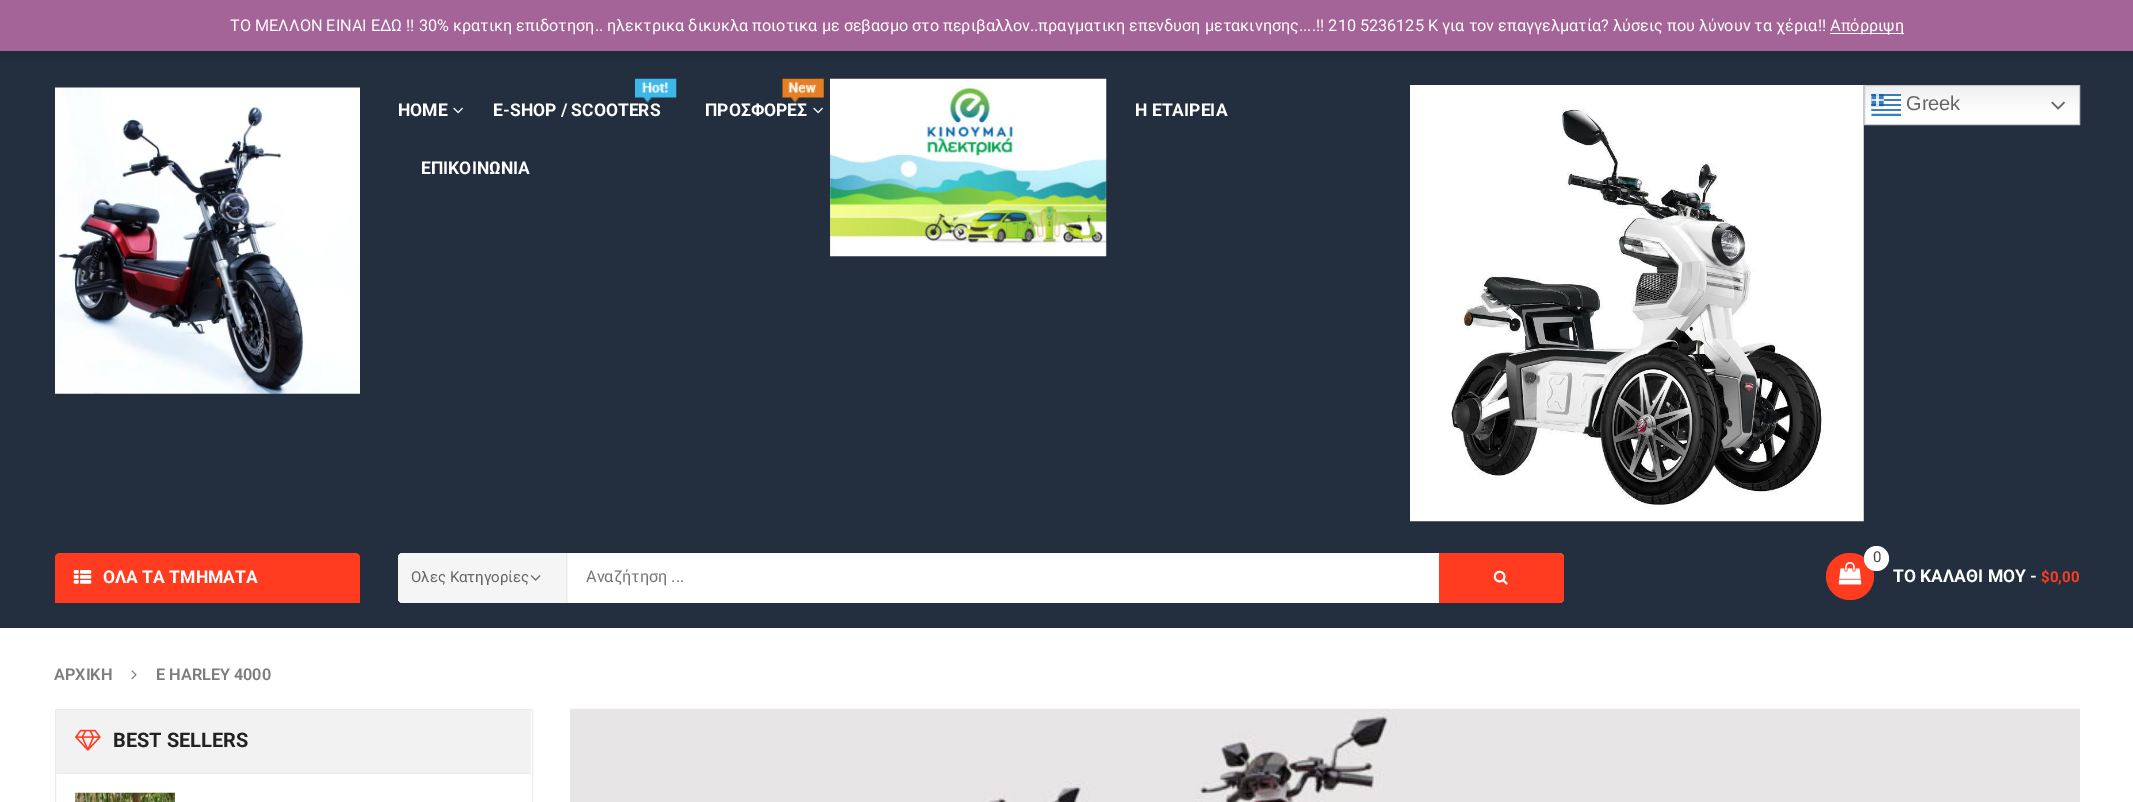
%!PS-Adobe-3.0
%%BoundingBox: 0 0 2133 802
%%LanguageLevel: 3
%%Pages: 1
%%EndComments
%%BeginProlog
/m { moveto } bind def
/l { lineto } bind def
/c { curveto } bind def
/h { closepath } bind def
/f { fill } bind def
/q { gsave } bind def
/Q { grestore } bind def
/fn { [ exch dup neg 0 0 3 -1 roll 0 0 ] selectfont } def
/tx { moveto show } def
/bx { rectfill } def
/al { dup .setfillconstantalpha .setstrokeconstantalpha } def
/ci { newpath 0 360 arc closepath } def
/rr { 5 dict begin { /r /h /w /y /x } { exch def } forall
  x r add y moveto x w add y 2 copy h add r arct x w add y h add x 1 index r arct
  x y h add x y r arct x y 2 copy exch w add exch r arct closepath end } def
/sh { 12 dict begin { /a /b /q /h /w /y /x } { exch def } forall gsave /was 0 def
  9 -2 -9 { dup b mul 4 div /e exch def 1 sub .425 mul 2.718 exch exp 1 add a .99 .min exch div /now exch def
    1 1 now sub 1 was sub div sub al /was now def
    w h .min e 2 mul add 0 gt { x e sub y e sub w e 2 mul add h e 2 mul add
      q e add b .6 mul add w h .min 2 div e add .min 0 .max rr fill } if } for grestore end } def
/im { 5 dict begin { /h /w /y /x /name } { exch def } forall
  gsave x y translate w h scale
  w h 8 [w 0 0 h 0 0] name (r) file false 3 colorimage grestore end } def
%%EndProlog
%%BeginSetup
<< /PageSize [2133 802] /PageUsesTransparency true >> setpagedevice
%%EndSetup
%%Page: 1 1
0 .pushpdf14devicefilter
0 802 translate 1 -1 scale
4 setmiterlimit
1 setgray
0 0 2133 802 bx
0.137 0.184 0.243 setrgbcolor
0 51 2133 577 bx
0 setgray
0 1 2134 52 0 8 0.2 sh
0.643 0.392 0.592 setrgbcolor
0 0 2133 51 bx
/Roboto-Regular 16.25 fn
1 setgray
(ΤΟ ΜΕΛΛΟΝ ΕΙΝΑΙ ΕΔΩ !! 30% κρατικη επιδοτηση.. ηλεκτρικα δικυκλα ποιοτικα με σεβασμο στο περιβαλλον..πραγματικη επενδυση μετακινησης....!! 210 5236125 Κ για τον επαγγελματία? λύσεις που λύνουν τα χέρια!!) 230 31 tx
1830 33 74 1 bx
(Απόρριψη) 1830 31 tx
(image0.raw) 55 87 305 307 im
/Roboto-Bold 17.5 fn
(HOME) 398 116 tx
(image1.raw) 453 107 10 7 im
(image2.raw) 635 78 42 25 im
(E-SHOP / SCOOTERS) 493 116 tx
(image3.raw) 782 78 42 25 im
(ΠΡΟΣΦΟΡΕΣ) 705 116 tx
(image1.raw) 813 107 10 7 im
(image4.raw) 830 78 277 179 im
(Η ΕΤΑΙΡΕΙΑ) 1135 116 tx
(ΕΠΙΚΟΙΝΩΝΙΑ) 421 174 tx
(image5.raw) 1410 85 454 437 im
q 1865 86 m 2079 86 l 2079 124 l 1865 124 l h clip newpath
<< /ShadingType 2 /ColorSpace /DeviceRGB /Coords [1972 85 1972 125] /Extend [true true] /Function << /FunctionType 3 /Domain [0 1] /Functions [<< /FunctionType 2 /Domain [0 1] /C0 [0.937 0.937 0.937] /C1 [1 1 1] /N 1 >> << /FunctionType 2 /Domain [0 1] /C0 [1 1 1] /C1 [1 1 1] /N 1 >>] /Bounds [0.7] /Encode [0 1 0 1] >> >> shfill Q
0.8 setgray
1864.5 85.5 215 39 rectstroke
(image6.raw) 1871 93 30 24 im
/LiberationSans-Regular 20 fn
0.4 setgray
(Greek) 1906 110 tx
(image7.raw) 2051 101 14 9 im
1 0.235 0.125 setrgbcolor
60 553 m 355 553 l 358 553 360 555 360 558 c 360 603 l 55 603 l 55 558 l 55 555 57 553 60 553 c h f
(image8.raw) 73 570 19 14 im
/Roboto-Bold 17.5 fn
1 setgray
(ΟΛΑ ΤΑ ΤΜΗΜΑΤΑ) 103 583 tx
398 553 1166 50 5 rr f
0.961 setgray
403 553 m 568 553 l 568 603 l 403 603 l 400 603 398 601 398 598 c 398 558 l 398 555 400 553 403 553 c h f
0.922 setgray
566 553 1 50 bx
0.961 setgray
403 553 m 566 553 l 566 603 l 403 603 l 400 603 398 601 398 598 c 398 558 l 398 555 400 553 403 553 c h f
/Roboto-Regular 15 fn
0.4 setgray
(Ολες Κατηγορίες) 411 582 tx
(image9.raw) 530 575 11 6 im
/Roboto-Regular 16.25 fn
0.459 setgray
(Αναζήτηση ...) 586 582 tx
1 0.235 0.125 setrgbcolor
1439 553 m 1559 553 l 1562 553 1564 555 1564 558 c 1564 598 l 1564 601 1562 603 1559 603 c 1439 603 l h f
(image10.raw) 1493 570 15 15 im
1826 553 48 47 23.5 rr f
1 setgray
1876.5 558.5 12.5 ci f
/Roboto-Regular 15 fn
0.275 setgray
(0) 1873 562 tx
(image11.raw) 1838 562 24 23 im
/Roboto-Bold 17.5 fn
1 setgray
(ΤΟ ΚΑΛΑΘΙ ΜΟΥ -) 1893 582 tx
/Roboto-Bold 15 fn
1 0.235 0.125 setrgbcolor
($0,00) 2041 582 tx
/Roboto-SemiBold 16.25 fn
0.49 setgray
(ΑΡΧΙΚΗ) 54 680 tx
(image12.raw) 131 670 6 10 im
(E HARLEY 4000) 156 680 tx
0.922 setgray
55.5 709.5 477 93 rectstroke
0.949 setgray
56 710 475 63 bx
(image13.raw) 75 729 26 22 im
/Roboto-Bold 20 fn
0.133 setgray
(BEST SELLERS) 113 747 tx
0.922 setgray
56 773 475 1 bx
(image14.raw) 75 792 100 10 im
(image15.raw) 570 708 1510 94 im
.poppdf14devicefilter showpage
%%EOF
